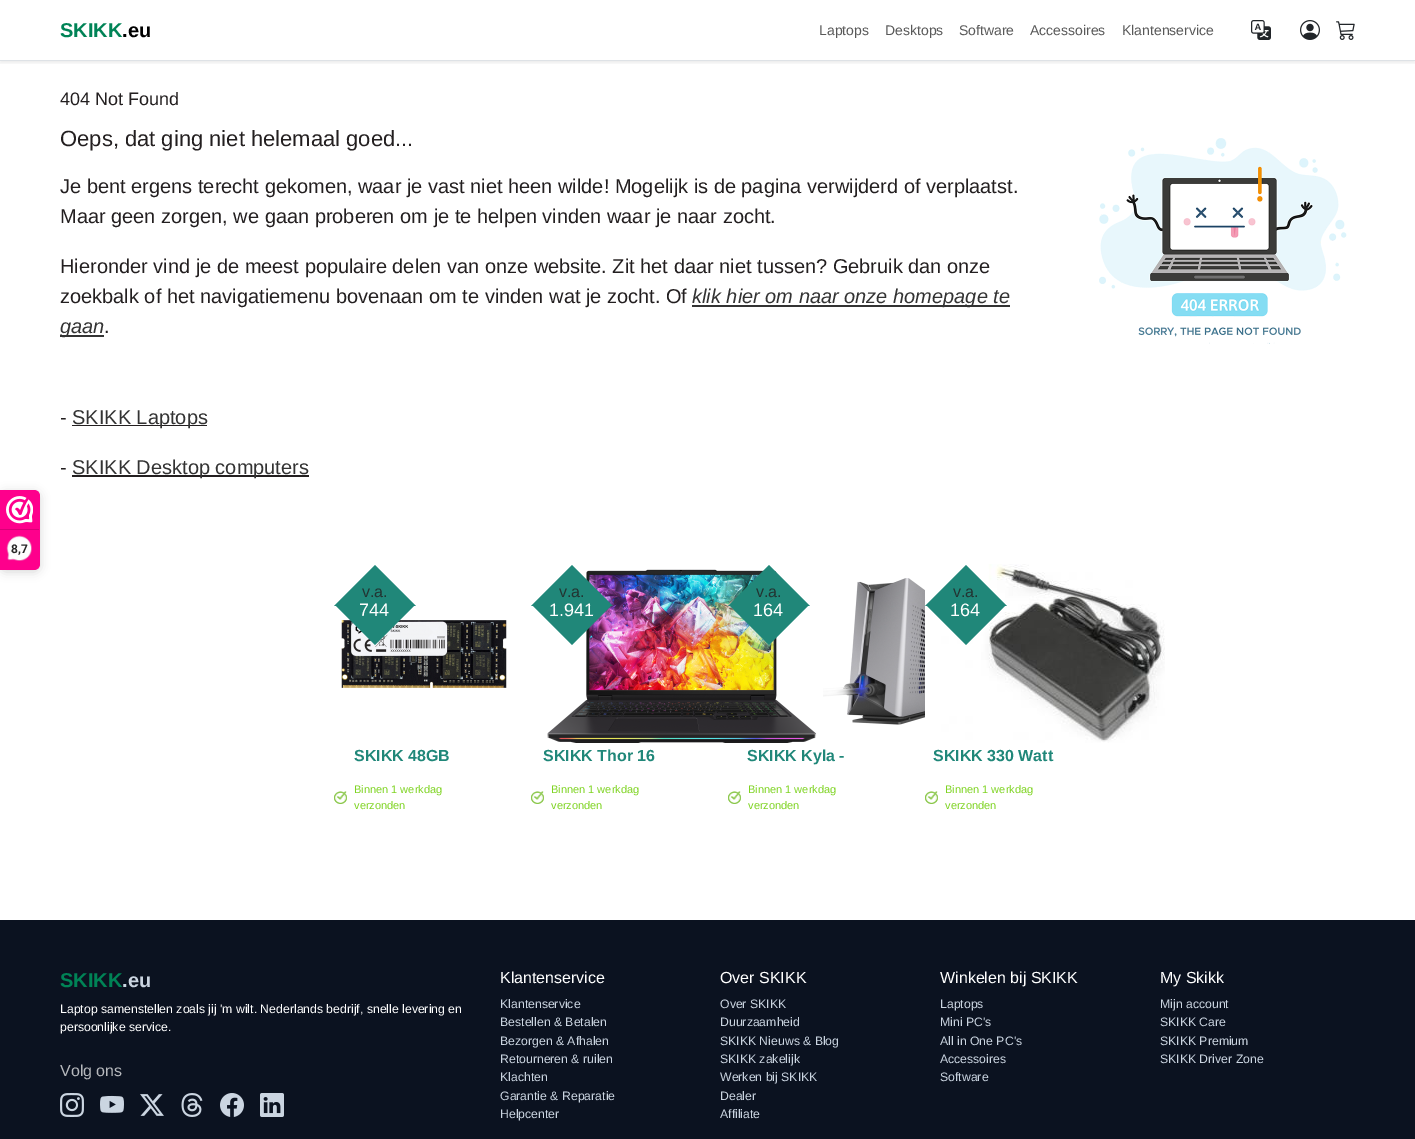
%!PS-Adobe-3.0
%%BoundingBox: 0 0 1415 1139
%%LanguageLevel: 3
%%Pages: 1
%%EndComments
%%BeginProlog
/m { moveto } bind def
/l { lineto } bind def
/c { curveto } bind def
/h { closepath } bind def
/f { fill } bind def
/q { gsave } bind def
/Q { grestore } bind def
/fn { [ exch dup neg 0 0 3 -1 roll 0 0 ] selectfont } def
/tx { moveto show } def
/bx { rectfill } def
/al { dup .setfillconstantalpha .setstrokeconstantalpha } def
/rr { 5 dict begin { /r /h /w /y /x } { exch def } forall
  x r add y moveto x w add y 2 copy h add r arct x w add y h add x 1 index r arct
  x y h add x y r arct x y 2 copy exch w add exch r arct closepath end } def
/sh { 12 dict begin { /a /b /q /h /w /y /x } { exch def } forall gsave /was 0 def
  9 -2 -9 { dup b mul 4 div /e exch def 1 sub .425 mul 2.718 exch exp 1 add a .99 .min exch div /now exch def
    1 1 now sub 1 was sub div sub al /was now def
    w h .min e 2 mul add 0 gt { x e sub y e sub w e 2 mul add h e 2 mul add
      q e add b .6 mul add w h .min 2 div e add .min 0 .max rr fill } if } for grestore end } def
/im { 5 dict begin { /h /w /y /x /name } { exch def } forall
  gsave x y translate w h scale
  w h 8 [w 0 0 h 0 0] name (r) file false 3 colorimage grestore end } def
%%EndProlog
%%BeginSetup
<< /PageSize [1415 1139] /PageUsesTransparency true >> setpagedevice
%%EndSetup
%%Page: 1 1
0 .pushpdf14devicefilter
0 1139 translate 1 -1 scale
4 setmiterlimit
1 setgray
0 0 1415 1139 bx
q
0 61 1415 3 rectclip
0 setgray
0 2 1415 61 0 2 0.07 sh
Q
0.871 0.886 0.902 setrgbcolor
0 60 1415 1 bx
/LiberationSans-Bold 20 fn
0 0.514 0.337 setrgbcolor
(SKIKK) 60 37 tx
0 setgray
(.eu) 122 37 tx
/LiberationSans-Regular 14 fn
0.349 setgray
(Laptops) 819 35 tx
(Desktops) 885 35 tx
(Software) 959 35 tx
(Accessoires) 1030 35 tx
(Klantenservice) 1122 35 tx
(image0.raw) 1251 20 20 20 im
(image1.raw) 1300 20 20 20 im
(image2.raw) 1336 21 19 19 im
0 setgray
0 492 40 80 6 5 0.15 sh
0.996 0 0.549 setrgbcolor
0 490 m 34 490 l 37.5 490 40 492.5 40 496 c 40 564 l 40 567.5 37.5 570 34 570 c 0 570 l h f
(image3.raw) 6 496 27 28 im
0.847 0 0.467 setrgbcolor
0 529 39 1 bx
(image4.raw) 6 535 26 26 im
/Roboto-Bold 12 fn
0.153 0.149 0.149 setrgbcolor
(8,7) 11 553 tx
/LiberationSans-Regular 18 fn
0.137 0.122 0.125 setrgbcolor
(404 Not Found) 60 105 tx
/LiberationSans-Regular 22 fn
(Oeps, dat ging niet helemaal goed...) 60 146 tx
(image5.raw) 1099 138 248 206 im
/LiberationSans-Regular 20 fn
(Je bent ergens terecht gekomen, waar je vast niet heen wilde! Mogelijk is de pagina verwijderd of verplaatst.) 60 193 tx
(Maar geen zorgen, we gaan proberen om je te helpen vinden waar je naar zocht.) 60 223 tx
(Hieronder vind je de meest populaire delen van onze website. Zit het daar niet tussen? Gebruik dan onze) 60 273 tx
(zoekbalk of het navigatiemenu bovenaan om te vinden wat je zocht. Of) 60 303 tx
0.2 setgray
692 305 318 2 bx
/LiberationSans-Italic 20 fn
(klik hier om naar onze homepage te) 692 303 tx
60 335 44 2 bx
(gaan) 60 333 tx
/LiberationSans-Regular 20 fn
0.137 0.122 0.125 setrgbcolor
(.) 104 333 tx
(-) 60 424 tx
72 425 135 1 bx
0.2 setgray
(SKIKK Laptops) 72 424 tx
0.137 0.122 0.125 setrgbcolor
(-) 60 474 tx
72 475 237 2 bx
0.2 setgray
(SKIKK Desktop computers) 72 474 tx
0.125 0.529 0.475 setrgbcolor
416 606 m 334 606 l 375 565 l h f
/LiberationSans-Regular 16 fn
0.133 0.204 0.196 setrgbcolor
(v.a.) 362 597 tx
(image6.raw) 341 620 166 68 im
0.125 0.529 0.475 setrgbcolor
335 605 m 415 605 l 375 645 l h f
/LiberationSans-Regular 18 fn
1 setgray
(744) 359 616 tx
/LiberationSans-Bold 16 fn
0.125 0.529 0.475 setrgbcolor
(SKIKK 48GB) 354 761 tx
(image7.raw) 334 791 13 13 im
/LiberationSans-Regular 11 fn
0.494 0.827 0.129 setrgbcolor
(Binnen 1 werkdag) 354 793 tx
(verzonden) 354 809 tx
(image8.raw) 547 569 270 174 im
0.125 0.529 0.475 setrgbcolor
613 606 m 531 606 l 572 565 l h f
/LiberationSans-Regular 16 fn
0.133 0.204 0.196 setrgbcolor
(v.a.) 559 597 tx
0.125 0.529 0.475 setrgbcolor
532 605 m 612 605 l 572 645 l h f
/LiberationSans-Regular 18 fn
1 setgray
(1.941) 549 616 tx
/LiberationSans-Bold 16 fn
0.125 0.529 0.475 setrgbcolor
(SKIKK Thor 16) 543 761 tx
(image7.raw) 531 791 13 13 im
/LiberationSans-Regular 11 fn
0.494 0.827 0.129 setrgbcolor
(Binnen 1 werkdag) 551 793 tx
(verzonden) 551 809 tx
0.125 0.529 0.475 setrgbcolor
810 606 m 728 606 l 769 565 l h f
/LiberationSans-Regular 16 fn
0.133 0.204 0.196 setrgbcolor
(v.a.) 756 597 tx
0.125 0.529 0.475 setrgbcolor
729 605 m 809 605 l 769 645 l h f
/LiberationSans-Regular 18 fn
1 setgray
(164) 753 616 tx
(image9.raw) 823 578 102 147 im
/LiberationSans-Bold 16 fn
0.125 0.529 0.475 setrgbcolor
(SKIKK Kyla -) 747 761 tx
(image7.raw) 728 791 13 13 im
/LiberationSans-Regular 11 fn
0.494 0.827 0.129 setrgbcolor
(Binnen 1 werkdag) 748 793 tx
(verzonden) 748 809 tx
(image10.raw) 925 564 240 179 im
0.125 0.529 0.475 setrgbcolor
1007 606 m 925 606 l 966 565 l h f
/LiberationSans-Regular 16 fn
0.133 0.204 0.196 setrgbcolor
(v.a.) 953 597 tx
0.125 0.529 0.475 setrgbcolor
926 605 m 1006 605 l 966 645 l h f
/LiberationSans-Regular 18 fn
1 setgray
(164) 950 616 tx
/LiberationSans-Bold 16 fn
0.125 0.529 0.475 setrgbcolor
(SKIKK 330 Watt) 933 761 tx
(image7.raw) 925 791 13 13 im
/LiberationSans-Regular 11 fn
0.494 0.827 0.129 setrgbcolor
(Binnen 1 werkdag) 945 793 tx
(verzonden) 945 809 tx
0.043 0.071 0.125 setrgbcolor
0 920 1415 219 bx
/LiberationSans-Bold 20 fn
0 0.514 0.337 setrgbcolor
(SKIKK) 60 987 tx
0.796 0.835 0.882 setrgbcolor
(.eu) 122 987 tx
/LiberationSans-Regular 12.25 fn
1 setgray
(Laptop samenstellen zoals jij 'm wilt. Nederlands bedrijf, snelle levering en) 60 1013 tx
(persoonlijke service.) 60 1031 tx
/LiberationSans-Regular 16 fn
0.714 0.722 0.737 setrgbcolor
(Volg ons) 60 1076 tx
(image11.raw) 60 1093 24 24 im
(image12.raw) 100 1095 24 18 im
(image13.raw) 140 1094 24 22 im
(image14.raw) 181 1093 22 24 im
(image15.raw) 220 1093 24 24 im
(image16.raw) 260 1093 24 24 im
1 setgray
(Klantenservice) 500 983 tx
/LiberationSans-Regular 12.25 fn
0.796 0.835 0.882 setrgbcolor
(Klantenservice) 500 1008 tx
(Bestellen & Betalen) 500 1026 tx
(Bezorgen & Afhalen) 500 1045 tx
(Retourneren & ruilen) 500 1063 tx
(Klachten) 500 1081 tx
(Garantie & Reparatie) 500 1100 tx
(Helpcenter) 500 1118 tx
/LiberationSans-Regular 16 fn
1 setgray
(Over SKIKK) 720 983 tx
/LiberationSans-Regular 12.25 fn
0.796 0.835 0.882 setrgbcolor
(Over SKIKK) 720 1008 tx
(Duurzaamheid) 720 1026 tx
(SKIKK Nieuws & Blog) 720 1045 tx
(SKIKK zakelijk) 720 1063 tx
(Werken bij SKIKK) 720 1081 tx
(Dealer) 720 1100 tx
(Affiliate) 720 1118 tx
/LiberationSans-Regular 16 fn
1 setgray
(Winkelen bij SKIKK) 940 983 tx
/LiberationSans-Regular 12.25 fn
0.796 0.835 0.882 setrgbcolor
(Laptops) 940 1008 tx
(Mini PC's) 940 1026 tx
(All in One PC's) 940 1045 tx
(Accessoires) 940 1063 tx
(Software) 940 1081 tx
/LiberationSans-Regular 16 fn
1 setgray
(My Skikk) 1160 983 tx
/LiberationSans-Regular 12.25 fn
0.796 0.835 0.882 setrgbcolor
(Mijn account) 1160 1008 tx
(SKIKK Care) 1160 1026 tx
(SKIKK Premium) 1160 1045 tx
(SKIKK Driver Zone) 1160 1063 tx
.poppdf14devicefilter showpage
%%EOF
